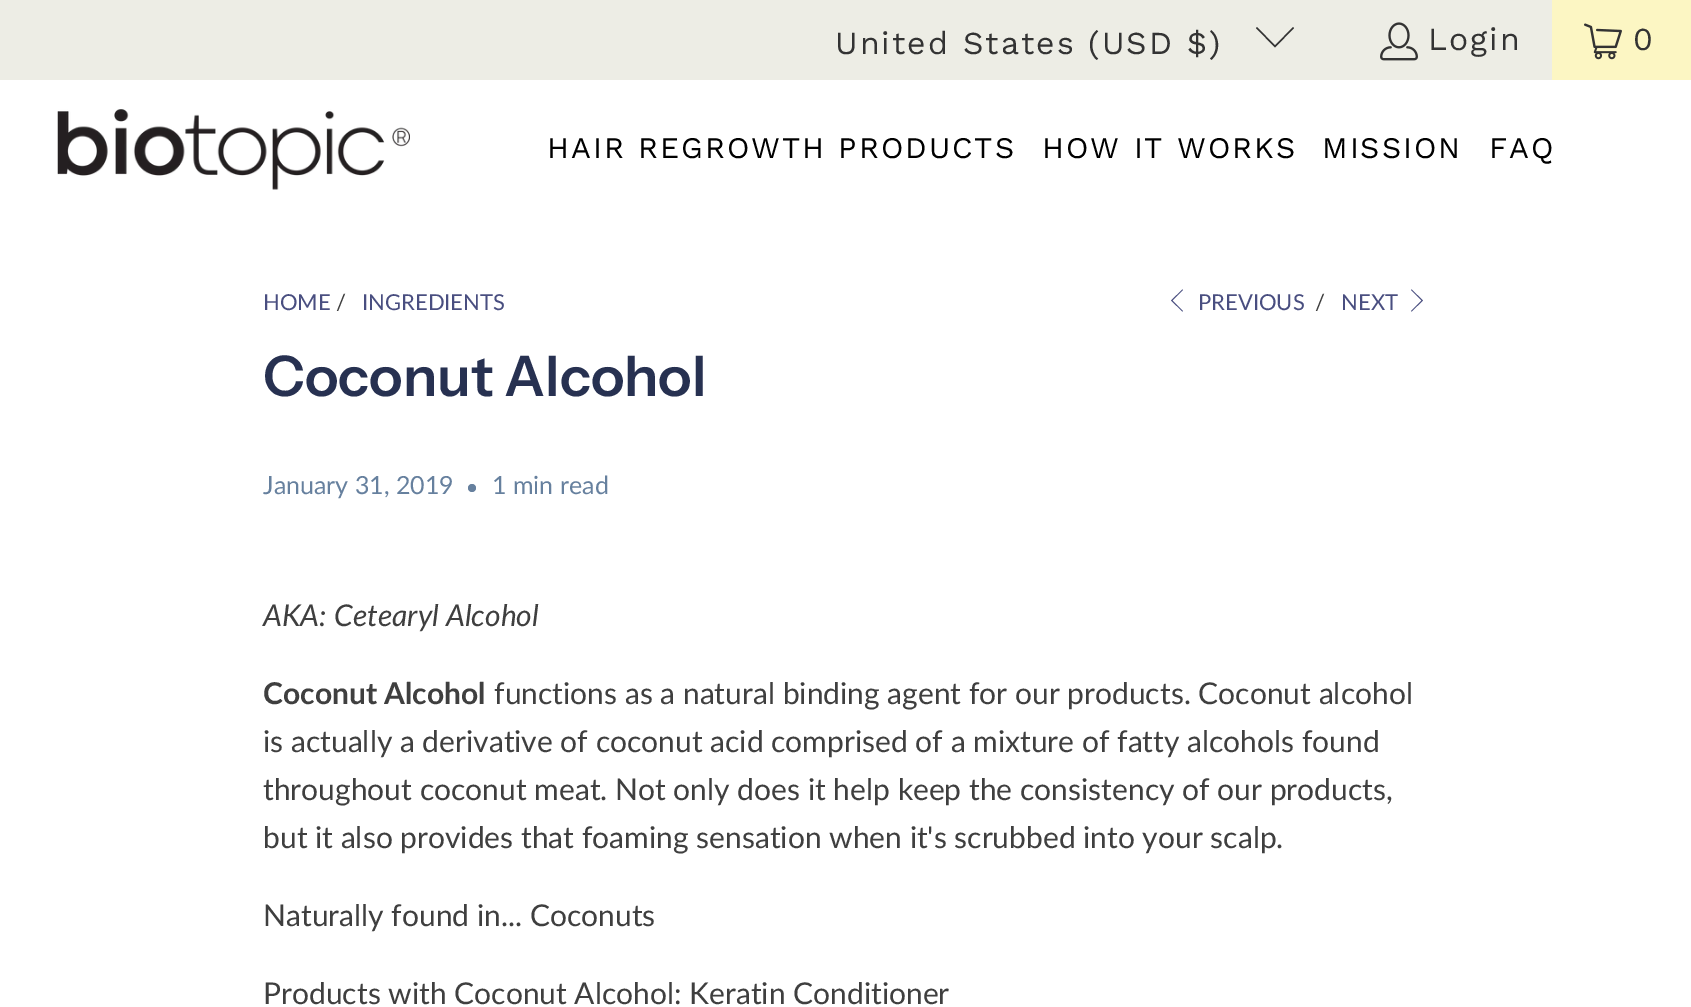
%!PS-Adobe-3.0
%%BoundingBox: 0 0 1691 1007
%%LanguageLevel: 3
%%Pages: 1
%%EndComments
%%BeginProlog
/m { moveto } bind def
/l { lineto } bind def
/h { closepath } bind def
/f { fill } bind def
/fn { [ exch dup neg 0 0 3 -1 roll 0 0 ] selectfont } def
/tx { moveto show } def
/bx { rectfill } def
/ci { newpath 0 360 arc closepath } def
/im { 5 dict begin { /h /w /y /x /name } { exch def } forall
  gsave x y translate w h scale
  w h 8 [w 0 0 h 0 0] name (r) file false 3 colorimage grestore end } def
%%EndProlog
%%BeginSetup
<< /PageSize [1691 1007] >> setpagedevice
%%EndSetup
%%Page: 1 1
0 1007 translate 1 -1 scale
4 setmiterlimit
1 setgray
0 0 1691 1007 bx
0.929 0.929 0.898 setrgbcolor
0 0 1552 80 bx
/WorkSans-Regular 32 fn
0.2 setgray
835 54 m 2 0 (United States \(USD $\)) ashow
1275 47.5 m 1256 28 l 1257 27 l 1275 45.5 l 1293 27 l 1294 28 l h f
(image0.raw) 1380 22 38 39 im
1428 50 m 2 0 (Login) ashow
0.988 0.965 0.765 setrgbcolor
1552 0 139 80 bx
(image1.raw) 1584 23 38 37 im
0.2 setgray
1633 50 m 2 0 (0) ashow
(image2.raw) 57 109 353 81 im
/WorkSans-Regular 30 fn
0 setgray
547 158 m 2 0 (HAIR REGROWTH PRODUCTS) ashow
1042 158 m 2 0 (HOW IT WORKS) ashow
1322 158 m 2 0 (MISSION) ashow
1489 158 m 2 0 (FAQ) ashow
/Lato-Regular 22 fn
0.286 0.306 0.502 setrgbcolor
(HOME) 263 310 tx
0.247 setgray
(/) 336 310 tx
0.286 0.306 0.502 setrgbcolor
(INGREDIENTS) 362 310 tx
1182.5 311.5 m 1171 300.5 l 1182.5 289.5 l 1183 290 l 1172.5 300.5 l 1183 311 l h f
(PREVIOUS) 1198 310 tx
0.247 setgray
(/) 1315 310 tx
0.286 0.306 0.502 setrgbcolor
(NEXT) 1341 310 tx
1411.5 311.5 m 1411 311 l 1421.5 300.5 l 1411 290 l 1411.5 289.5 l 1423 300.5 l h f
/InstrumentSans-SemiBold 56 fn
0.153 0.192 0.318 setrgbcolor
(Coconut Alcohol) 263 396 tx
/Lato-Regular 25 fn
0.4 0.502 0.62 setrgbcolor
(January 31, 2019) 263 494 tx
472 488 4 ci f
(1 min read) 492 494 tx
/Lato-Italic 30 fn
0.247 setgray
(AKA: Cetearyl Alcohol) 263 626 tx
/Lato-Bold 30 fn
(Coconut Alcohol) 263 704 tx
/Lato-Regular 30 fn
(functions as a natural binding agent for our products. Coconut alcohol) 494 704 tx
(is actually a derivative of coconut acid comprised of a mixture of fatty alcohols found) 263 752 tx
(throughout coconut meat. Not only does it help keep the consistency of our products,) 263 800 tx
(but it also provides that foaming sensation when it's scrubbed into your scalp.) 263 848 tx
(Naturally found in... Coconuts) 263 926 tx
(Products with Coconut Alcohol: Keratin Conditioner) 263 1004 tx
showpage
%%EOF
